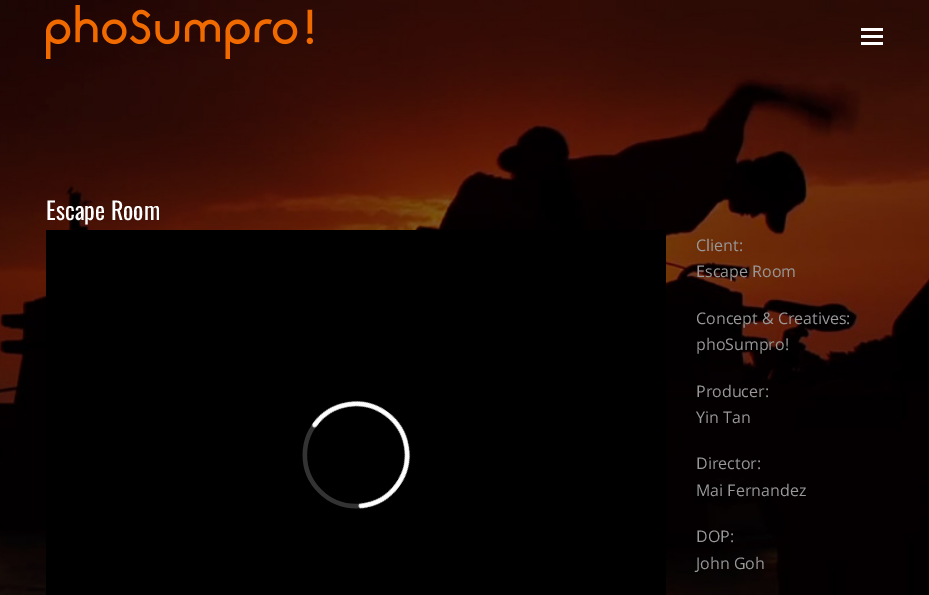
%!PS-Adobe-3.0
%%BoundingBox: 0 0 929 595
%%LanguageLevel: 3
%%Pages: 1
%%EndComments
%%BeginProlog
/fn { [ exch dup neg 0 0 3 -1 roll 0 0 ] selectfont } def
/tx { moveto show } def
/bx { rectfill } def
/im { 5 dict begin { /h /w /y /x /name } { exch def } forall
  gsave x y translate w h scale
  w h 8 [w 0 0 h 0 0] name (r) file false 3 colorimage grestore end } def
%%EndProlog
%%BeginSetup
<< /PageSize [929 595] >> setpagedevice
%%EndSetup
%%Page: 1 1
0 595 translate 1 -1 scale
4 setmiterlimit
1 setgray
0 0 929 595 bx
(image0.raw) 0 0 929 595 im
(image1.raw) 46 5 267 54 im
861 35 22 3 bx
861 28 22 3 bx
861 42 22 3 bx
/Oswald-Regular 24 fn
(Escape Room) 46 220 tx
(image2.raw) 46 230 620 365 im
/OpenSans-Regular 16 fn
0.6 setgray
(Client:) 696 251 tx
(Escape Room) 696 277 tx
(Concept & Creatives:) 696 324 tx
(phoSumpro!) 696 350 tx
(Producer:) 696 397 tx
(Yin Tan) 696 423 tx
(Director:) 696 469 tx
(Mai Fernandez) 696 496 tx
(DOP:) 696 542 tx
(John Goh) 696 569 tx
showpage
%%EOF
